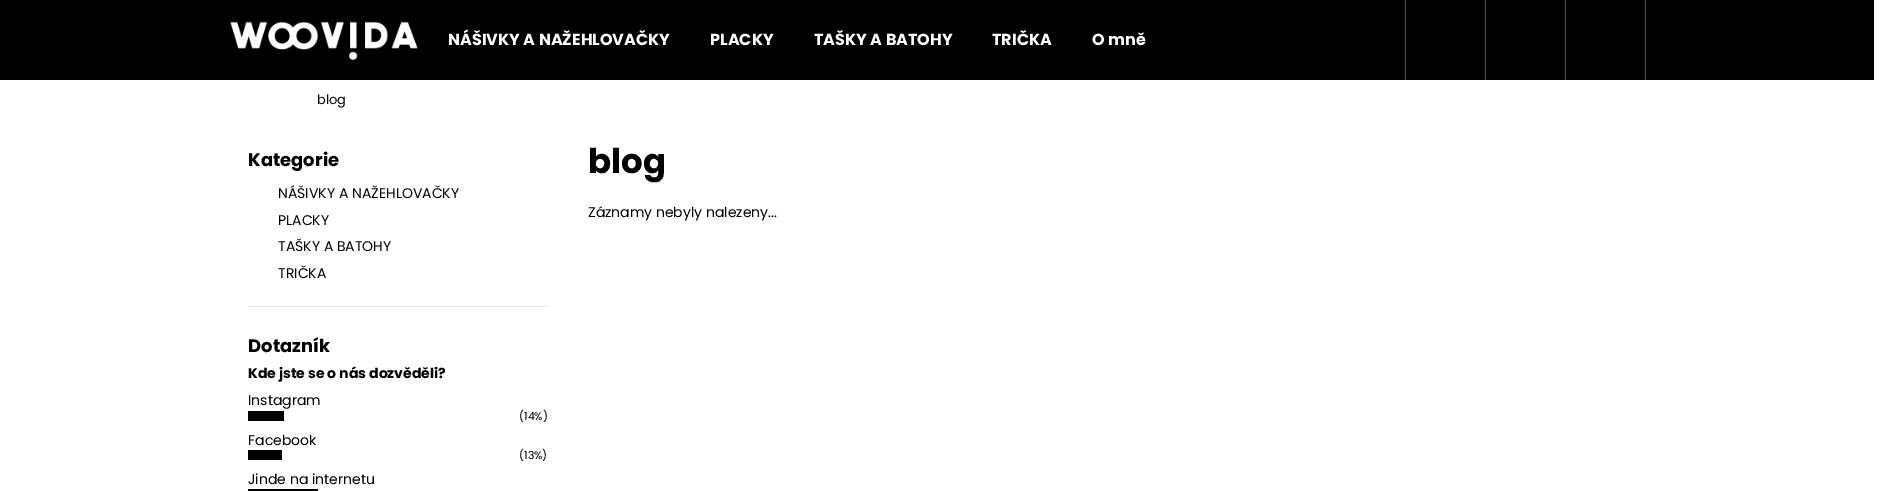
%!PS-Adobe-3.0
%%BoundingBox: 0 0 1889 491
%%LanguageLevel: 3
%%Pages: 1
%%EndComments
%%BeginProlog
/fn { [ exch dup neg 0 0 3 -1 roll 0 0 ] selectfont } def
/tx { moveto show } def
/bx { rectfill } def
/im { 5 dict begin { /h /w /y /x /name } { exch def } forall
  gsave x y translate w h scale
  w h 8 [w 0 0 h 0 0] name (r) file false 3 colorimage grestore end } def
%%EndProlog
%%BeginSetup
<< /PageSize [1889 491] >> setpagedevice
%%EndSetup
%%Page: 1 1
0 491 translate 1 -1 scale
4 setmiterlimit
1 setgray
0 0 1889 491 bx
0 setgray
0 0 1874 80 bx
(image0.raw) 230 21 188 39 im
/Poppins-Bold 16 fn
1 setgray
(NÁŠIVKY A NAŽEHLOVAČKY) 448 45 tx
(PLACKY) 710 45 tx
(TAŠKY A BATOHY) 814 45 tx
(TRIČKA) 992 45 tx
(O mně) 1092 45 tx
0.302 setgray
1645 0 1 80 bx
1405 0 1 80 bx
1485 0 1 80 bx
1565 0 1 80 bx
/Poppins-Regular 13 fn
0 setgray
(blog) 317 104 tx
/Poppins-Bold 18 fn
(Kategorie) 248 166 tx
/Poppins-Regular 14 fn
(NÁŠIVKY A NAŽEHLOVAČKY) 278 198 tx
(PLACKY) 278 225 tx
(TAŠKY A BATOHY) 278 251 tx
(TRIČKA) 278 278 tx
0.902 setgray
248 306 300 1 bx
/Poppins-Bold 18 fn
0 setgray
(Dotazník) 248 352 tx
/Poppins-Bold 14 fn
(Kde jste se o nás dozvěděli?) 248 378 tx
/Poppins-Regular 14 fn
(Instagram) 248 405 tx
248 411 36 10 bx
/Poppins-Regular 11 fn
(\(14%\)) 519 420 tx
/Poppins-Regular 14 fn
(Facebook) 248 445 tx
248 450 34 10 bx
/Poppins-Regular 11 fn
(\(13%\)) 519 459 tx
/Poppins-Regular 14 fn
(Jinde na internetu) 248 484 tx
248 489 70 2 bx
/Poppins-Bold 34 fn
(blog) 588 173 tx
/Poppins-Regular 14 fn
(Záznamy nebyly nalezeny...) 588 217 tx
showpage
%%EOF
